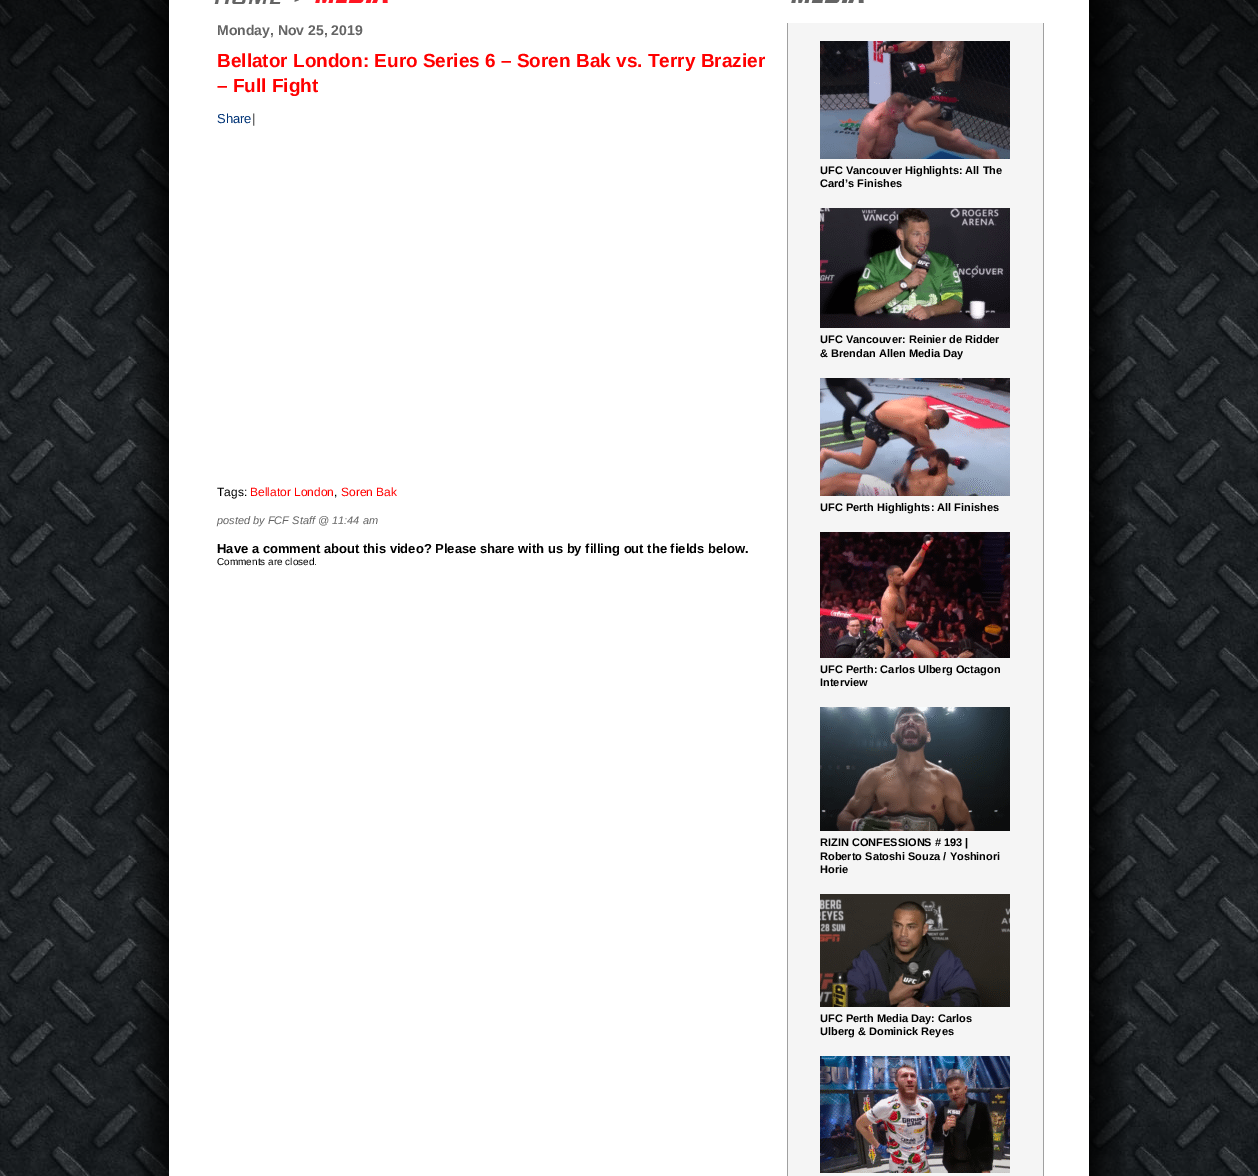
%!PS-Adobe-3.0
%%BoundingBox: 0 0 1258 1176
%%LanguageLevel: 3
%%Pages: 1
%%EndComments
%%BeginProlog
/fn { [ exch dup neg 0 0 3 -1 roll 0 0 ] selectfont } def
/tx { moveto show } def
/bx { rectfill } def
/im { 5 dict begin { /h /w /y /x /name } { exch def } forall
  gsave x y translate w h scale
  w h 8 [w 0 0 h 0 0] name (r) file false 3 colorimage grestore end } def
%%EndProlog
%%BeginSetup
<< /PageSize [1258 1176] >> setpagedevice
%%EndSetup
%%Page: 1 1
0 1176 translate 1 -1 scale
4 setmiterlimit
1 setgray
0 0 1258 1176 bx
(image0.raw) 0 0 1258 1176 im
(image1.raw) 0 0 1258 279 im
(image2.raw) 132 0 995 1176 im
(image3.raw) 214 0 67 4 im
(image4.raw) 294 0 5 2 im
(image5.raw) 315 0 73 3 im
(image6.raw) 791 0 73 3 im
0.961 setgray
788 23 255 1153 bx
0.627 setgray
1043 23 1 1153 bx
787 23 1 1153 bx
/LiberationSans-Bold 14 fn
0.392 setgray
(Monday, Nov 25, 2019) 217 35 tx
/LiberationSans-Bold 19 fn
1 0 0 setrgbcolor
(Bellator London: Euro Series 6 – Soren Bak vs. Terry Brazier) 217 67 tx
(– Full Fight) 217 92 tx
/LiberationSans-Regular 13 fn
0 0.2 0.463 setrgbcolor
(Share) 217 123 tx
0.2 setgray
(|) 252 123 tx
/LiberationSans-Regular 12 fn
0 setgray
(Tags:) 217 496 tx
1 0 0 setrgbcolor
(Bellator London) 250 496 tx
0 setgray
(,) 334 496 tx
1 0 0 setrgbcolor
(Soren Bak) 341 496 tx
/LiberationSans-Italic 11 fn
0.392 setgray
(posted by FCF Staff @ 11:44 am) 217 524 tx
/LiberationSans-Bold 13 fn
0 setgray
(Have a comment about this video? Please share with us by filling out the fields below.) 217 553 tx
/LiberationSans-Regular 10 fn
(Comments are closed.) 217 565 tx
(image7.raw) 820 41 190 118 im
/LiberationSans-Bold 11 fn
(UFC Vancouver Highlights: All The) 820 174 tx
(Card’s Finishes) 820 187 tx
(image8.raw) 820 208 190 120 im
(UFC Vancouver: Reinier de Ridder) 820 343 tx
(& Brendan Allen Media Day) 820 357 tx
(image9.raw) 820 378 190 118 im
(UFC Perth Highlights: All Finishes) 820 511 tx
(image10.raw) 820 532 190 126 im
(UFC Perth: Carlos Ulberg Octagon) 820 673 tx
(Interview) 820 686 tx
(image11.raw) 820 707 190 124 im
(RIZIN CONFESSIONS # 193 |) 820 846 tx
(Roberto Satoshi Souza / Yoshinori) 820 860 tx
(Horie) 820 873 tx
(image12.raw) 820 894 190 113 im
(UFC Perth Media Day: Carlos) 820 1022 tx
(Ulberg & Dominick Reyes) 820 1035 tx
(image13.raw) 820 1056 190 117 im
showpage
%%EOF
